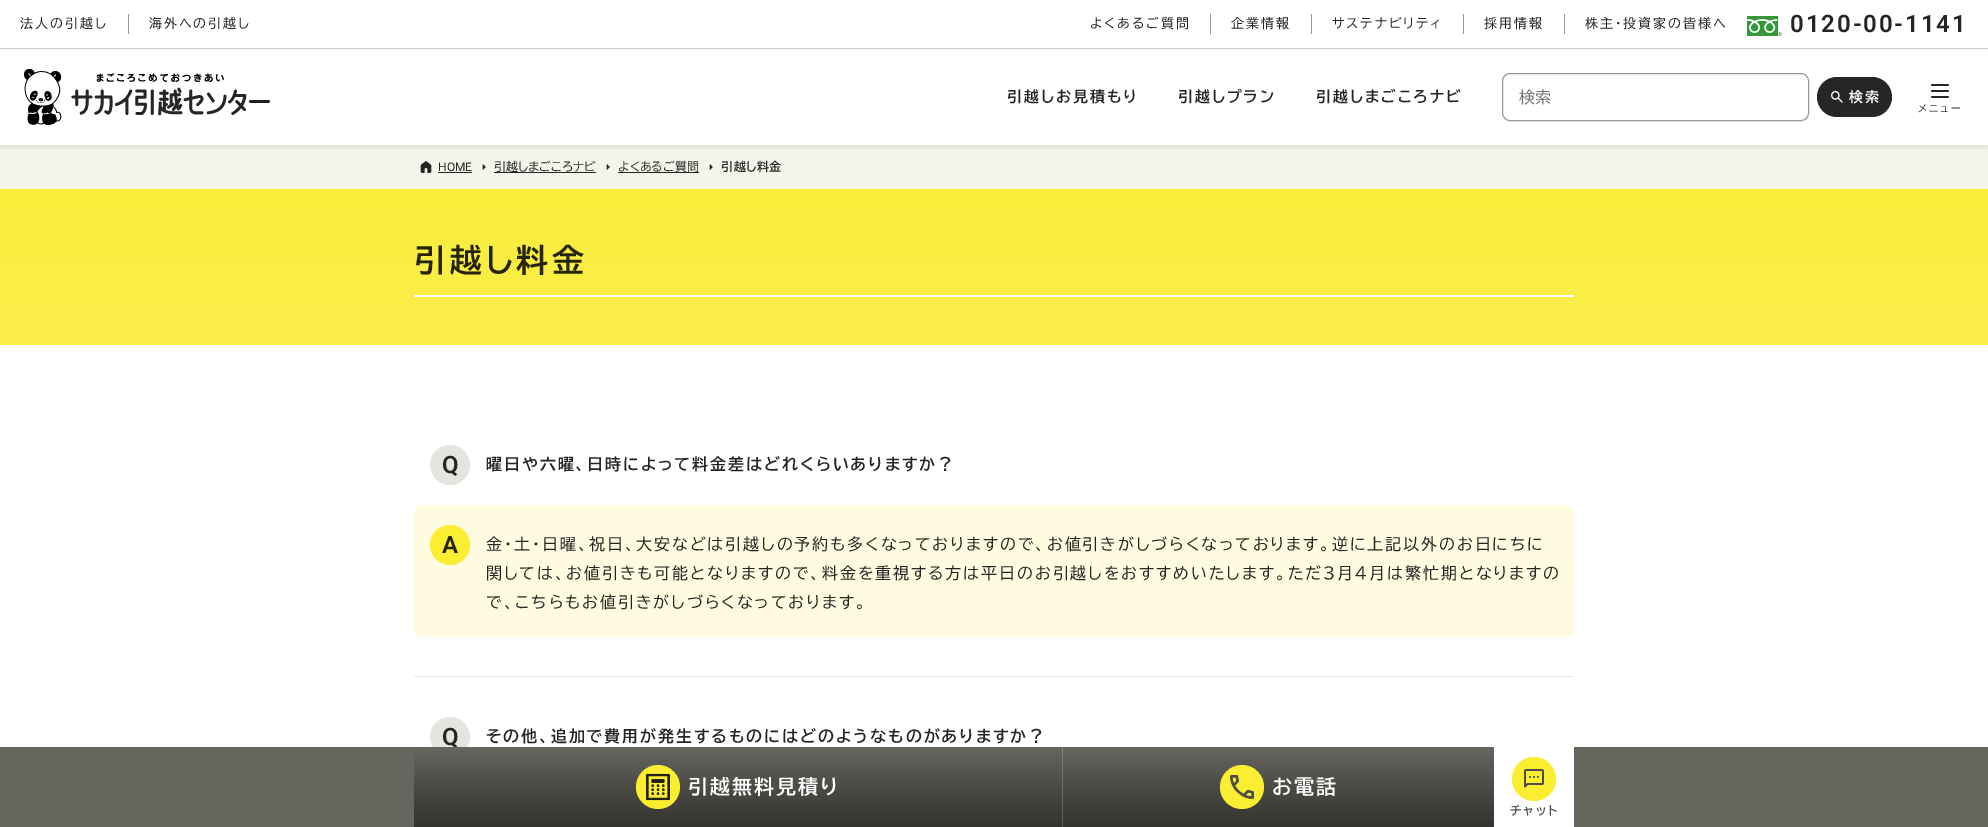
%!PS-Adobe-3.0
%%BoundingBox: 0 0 1988 827
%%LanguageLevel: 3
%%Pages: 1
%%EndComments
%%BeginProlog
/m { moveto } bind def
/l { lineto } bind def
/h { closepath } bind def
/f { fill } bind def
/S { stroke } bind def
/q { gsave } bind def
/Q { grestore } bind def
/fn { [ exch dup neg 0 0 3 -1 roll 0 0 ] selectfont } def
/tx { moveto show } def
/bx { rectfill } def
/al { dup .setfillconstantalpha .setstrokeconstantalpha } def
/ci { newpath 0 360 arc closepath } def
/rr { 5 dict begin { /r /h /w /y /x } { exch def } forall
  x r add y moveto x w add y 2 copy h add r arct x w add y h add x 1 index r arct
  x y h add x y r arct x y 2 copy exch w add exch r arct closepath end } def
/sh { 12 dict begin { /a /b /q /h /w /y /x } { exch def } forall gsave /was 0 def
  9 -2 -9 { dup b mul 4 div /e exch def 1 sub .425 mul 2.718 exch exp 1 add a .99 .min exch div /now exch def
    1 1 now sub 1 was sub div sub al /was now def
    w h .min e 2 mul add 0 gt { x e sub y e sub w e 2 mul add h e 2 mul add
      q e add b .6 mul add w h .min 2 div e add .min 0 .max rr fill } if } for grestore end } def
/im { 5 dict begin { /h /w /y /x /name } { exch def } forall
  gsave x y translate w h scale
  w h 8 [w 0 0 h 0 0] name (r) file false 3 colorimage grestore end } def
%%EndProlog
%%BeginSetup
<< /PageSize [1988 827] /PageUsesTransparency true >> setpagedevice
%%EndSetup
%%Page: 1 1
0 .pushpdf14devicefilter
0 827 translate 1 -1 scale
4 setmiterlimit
1 setgray
0 0 1988 827 bx
0.961 0.957 0.922 setrgbcolor
0 145 1988 44 bx
q
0 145 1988 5 rectclip
0 setgray
0 2 1988 145 0 4 0.1 sh
Q
0.8 setgray
0 48 1988 1 bx
/BIZUDPGothic-Regular 13 fn
0.145 0.145 0.137 setrgbcolor
20 28 m 1.92 0 (法人の引越し) ashow
0.6 0.596 0.565 setrgbcolor
128 14 1 20 bx
0.145 0.145 0.137 setrgbcolor
149 28 m 1.92 0 (海外への引越し) ashow
1090 28 m 1.92 0 (よくあるご質問) ashow
0.6 0.596 0.565 setrgbcolor
1210 14 1 20 bx
0.145 0.145 0.137 setrgbcolor
1231 28 m 1.92 0 (企業情報) ashow
0.6 0.596 0.565 setrgbcolor
1311 14 1 20 bx
0.145 0.145 0.137 setrgbcolor
1332 28 m 1.92 0 (サステナビリティ) ashow
0.6 0.596 0.565 setrgbcolor
1463 14 1 20 bx
0.145 0.145 0.137 setrgbcolor
1484 28 m 1.92 0 (採用情報) ashow
0.6 0.596 0.565 setrgbcolor
1564 14 1 20 bx
0.145 0.145 0.137 setrgbcolor
1585 28 m 1.92 0 (株主・投資家の皆様へ) ashow
(image0.raw) 1747 16 35 20 im
/Roboto-SemiBold 24 fn
1790 32 m 1.92 0 (0120-00-1141) ashow
(image1.raw) 24 69 246 56 im
/BIZUDPGothic-Bold 15 fn
1007 102 m 1.92 0 (引越しお見積もり) ashow
1178 102 m 1.92 0 (引越しプラン) ashow
1316 102 m 1.92 0 (引越しまごころナビ) ashow
0.6 setgray
1502.5 73.5 306 47 7.5 rr S
/BIZUDPGothic-Regular 16 fn
0.459 setgray
(検索) 1519 103 tx
0.149 setgray
1817 77 75 40 20 rr f
(image2.raw) 1831 91 12 12 im
/BIZUDPGothic-Bold 14 fn
1 setgray
1849 102 m 2 0 (検索) ashow
(image3.raw) 1931 84 18 14 im
/BIZUDPGothic-Regular 10 fn
0.231 0.184 0.184 setrgbcolor
1918 112 m 1.92 0 (メニュー) ashow
(image4.raw) 420 161 12 12 im
/Roboto-Regular 12 fn
0.145 0.145 0.137 setrgbcolor
(HOME) 438 171 tx
438 172 34 1 bx
(image5.raw) 482 164 4 6 im
494 172 102 1 bx
/BIZUDPGothic-Regular 12 fn
(引越しまごころナビ) 494 171 tx
(image5.raw) 606 164 4 6 im
618 172 81 1 bx
(よくあるご質問) 618 171 tx
(image5.raw) 709 164 4 6 im
/BIZUDPGothic-Bold 12 fn
721 171 m 0.5 0 (引越し料金) ashow
q 0 189 m 1988 189 l 1988 345 l 0 345 l h clip newpath
<< /ShadingType 2 /ColorSpace /DeviceRGB /Coords [994 109 994 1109] /Extend [true true] /Function << /FunctionType 2 /Domain [0 1] /C0 [0.98 0.929 0.196] /C1 [0.988 0.949 0.635] /N 1 >> >> shfill Q
1 setgray
414 295 1160 2 bx
/BIZUDPGothic-Bold 32 fn
0.149 0.141 0.039 setrgbcolor
414 272 m 3.5 0 (引越し料金) ashow
0.898 0.898 0.875 setrgbcolor
450 465 20 ci f
/Roboto-SemiBold 24 fn
0.145 0.145 0.137 setrgbcolor
(Q) 442 473 tx
/BIZUDPGothic-Bold 16 fn
486 470 m 1.92 0 (曜日や六曜、日時によって料金差はどれくらいありますか？) ashow
1 0.984 0.878 setrgbcolor
414 505 1160 132 8 rr f
0.98 0.929 0.196 setrgbcolor
450 545 20 ci f
/Roboto-SemiBold 24 fn
0.149 0.141 0.039 setrgbcolor
(A) 442 553 tx
/BIZUDPGothic-Regular 16 fn
0.145 0.145 0.137 setrgbcolor
486 550 m 1.92 0 (金・土・日曜、祝日、大安などは引越しの予約も多くなっておりますので、お値引きがしづらくなっております。逆に上記以外のお日にちに) ashow
486 579 m 1.92 0 (関しては、お値引きも可能となりますので、料金を重視する方は平日のお引越しをおすすめいたします。ただ3月4月は繁忙期となりますの) ashow
486 608 m 1.92 0 (で、こちらもお値引きがしづらくなっております。) ashow
0.902 0.898 0.878 setrgbcolor
414 676 1160 1 bx
0.898 0.898 0.875 setrgbcolor
450 737 20 ci f
/Roboto-SemiBold 24 fn
0.145 0.145 0.137 setrgbcolor
(Q) 442 745 tx
/BIZUDPGothic-Bold 16 fn
486 742 m 1.92 0 (その他、追加で費用が発生するものにはどのようなものがありますか？) ashow
0.4 0.396 0.369 setrgbcolor
0 747 1988 80 bx
q 414 751 m 1062 751 l 1062 827 l 414 827 l h clip newpath
<< /ShadingType 2 /ColorSpace /DeviceRGB /Coords [738 747 738 827] /Extend [true true] /Function << /FunctionType 2 /Domain [0 1] /C0 [0.4 0.396 0.369] /C1 [0.2 0.2 0.184] /N 1 >> >> shfill Q
0.98 0.929 0.196 setrgbcolor
658 787 22 ci f
(image6.raw) 646 773 24 28 im
/BIZUDPGothic-Bold 20 fn
1 setgray
688 794 m 1.92 0 (引越無料見積り) ashow
q 1063 751 m 1494 751 l 1494 827 l 1063 827 l h clip newpath
<< /ShadingType 2 /ColorSpace /DeviceRGB /Coords [1279 747 1279 827] /Extend [true true] /Function << /FunctionType 2 /Domain [0 1] /C0 [0.4 0.396 0.369] /C1 [0.2 0.2 0.184] /N 1 >> >> shfill Q
q 1062 747 m 1063 747 l 1063 827 l 1062 827 l h clip newpath
<< /ShadingType 2 /ColorSpace /DeviceRGB /Coords [1279 747 1279 827] /Extend [true true] /Function << /FunctionType 2 /Domain [0 1] /C0 [0.522 0.518 0.494] /C1 [0.361 0.361 0.349] /N 1 >> >> shfill Q
0.98 0.929 0.196 setrgbcolor
1242 787 22 ci f
(image7.raw) 1230 775 24 24 im
1 setgray
1272 794 m 1.92 0 (お電話) ashow
1494 747 80 80 bx
0.98 0.929 0.196 setrgbcolor
1534 779 22 ci f
(image8.raw) 1524 769 20 19 im
/BIZUDPGothic-Bold 12 fn
0.302 0.298 0.278 setrgbcolor
1510 815 m 1.92 0 (チャット) ashow
.poppdf14devicefilter showpage
%%EOF
